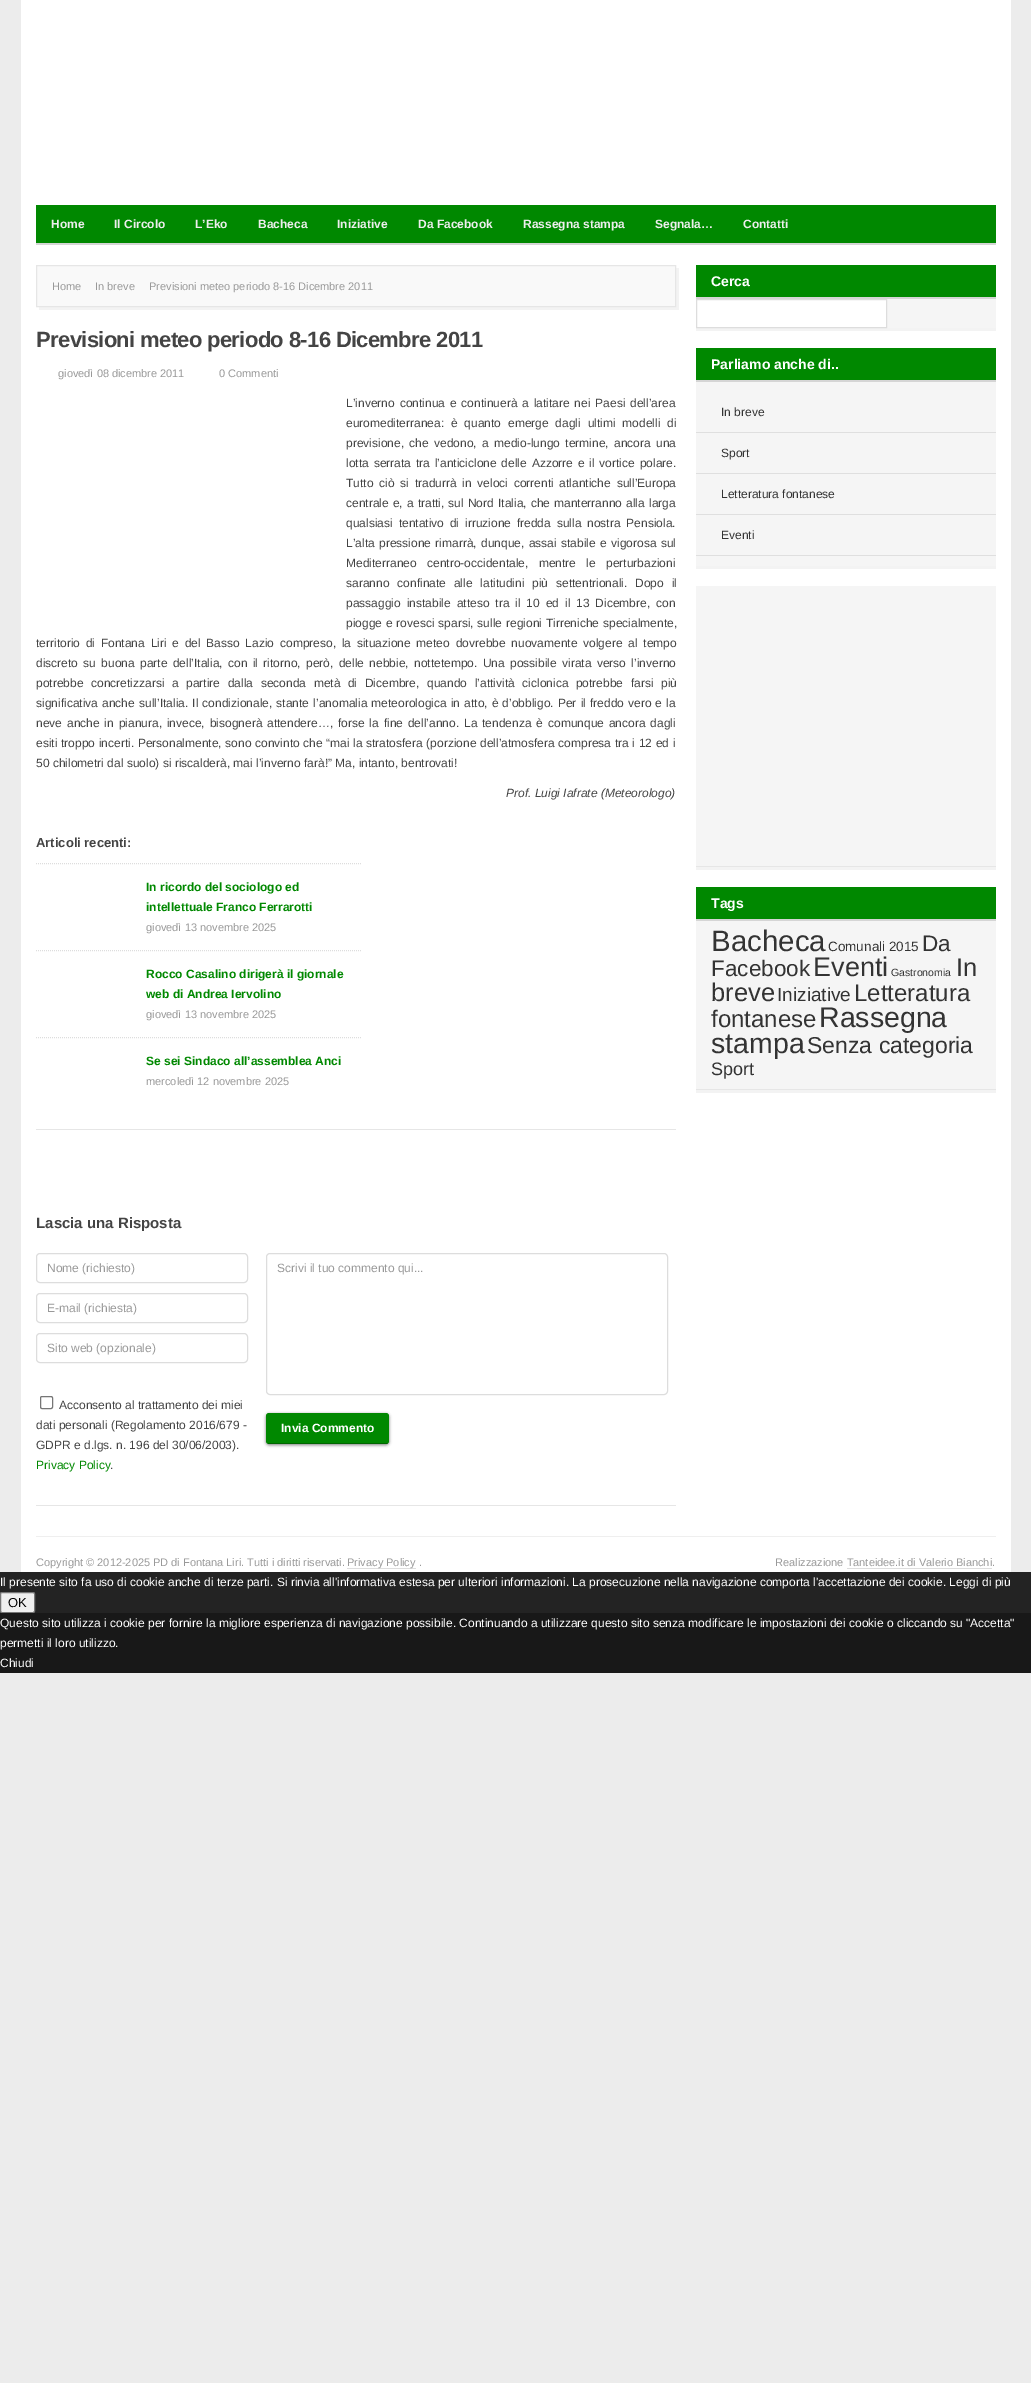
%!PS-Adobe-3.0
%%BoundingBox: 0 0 1031 2383
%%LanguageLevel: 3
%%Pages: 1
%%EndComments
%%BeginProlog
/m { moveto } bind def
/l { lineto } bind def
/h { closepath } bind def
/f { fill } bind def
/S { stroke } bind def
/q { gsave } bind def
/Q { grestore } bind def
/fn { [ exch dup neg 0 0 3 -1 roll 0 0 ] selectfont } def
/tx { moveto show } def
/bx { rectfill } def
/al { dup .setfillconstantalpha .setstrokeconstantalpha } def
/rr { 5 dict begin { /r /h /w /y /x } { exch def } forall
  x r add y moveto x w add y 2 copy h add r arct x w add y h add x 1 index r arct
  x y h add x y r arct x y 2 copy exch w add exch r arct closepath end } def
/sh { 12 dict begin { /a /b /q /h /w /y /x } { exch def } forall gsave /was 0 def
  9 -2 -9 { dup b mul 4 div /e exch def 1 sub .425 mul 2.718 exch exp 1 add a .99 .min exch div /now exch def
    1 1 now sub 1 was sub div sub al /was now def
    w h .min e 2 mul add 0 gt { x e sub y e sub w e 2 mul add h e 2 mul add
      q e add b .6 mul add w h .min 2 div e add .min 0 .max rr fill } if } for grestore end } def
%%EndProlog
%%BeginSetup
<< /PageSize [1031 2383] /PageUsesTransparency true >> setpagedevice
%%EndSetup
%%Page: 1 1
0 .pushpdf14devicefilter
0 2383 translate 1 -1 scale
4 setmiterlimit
0.925 setgray
0 0 1031 2383 bx
1 setgray
21 0 990 1572 bx
0 0.533 0 setrgbcolor
36 205 960 38 bx
0.835 setgray
36 243 960 2 bx
/LiberationSans-Bold 12 fn
0.933 setgray
(Home) 51 228 tx
(Il Circolo) 114 228 tx
(L’Eko) 195 228 tx
(Bacheca) 258 228 tx
(Iniziative) 337 228 tx
(Da Facebook) 418 228 tx
(Rassegna stampa) 523 228 tx
(Segnala…) 655 228 tx
(Contatti) 743 228 tx
0.953 setgray
39 307 m 39 310 l 679 310 l 679 268 l 676 268 l 676 307 l h f
0.976 setgray
36.5 265.5 m 675.5 265.5 l 675.5 306.5 l 36.5 306.5 l h q f Q
0.902 setgray
S
/LiberationSans-Regular 11 fn
0.6 setgray
(Home) 52 290 tx
(In breve) 95 290 tx
(Previsioni meteo periodo 8-16 Dicembre 2011) 149 290 tx
/LiberationSans-Bold 22 fn
0.267 setgray
36 347 m -0.65 0 (Previsioni meteo periodo 8-16 Dicembre 2011) ashow
/LiberationSans-Regular 11 fn
0.6 setgray
(giovedì 08 dicembre 2011) 58 377 tx
(0 Commenti) 219 377 tx
/LiberationSans-Regular 12 fn
0.267 setgray
346 407 m 1.5 0 32 (L’inverno continua e continuerà a latitare nei Paesi dell’area) widthshow
346 427 m 3.5 0 32 (euromediterranea: è quanto emerge dagli ultimi modelli di) widthshow
346 447 m 2 0 32 (previsione, che vedono, a medio-lungo termine, ancora una) widthshow
346 467 m 1.5 0 32 (lotta serrata tra l’anticiclone delle Azzorre e il vortice polare.) widthshow
346 487 m 2.4 0 32 (Tutto ciò si tradurrà in veloci correnti atlantiche sull’Europa) widthshow
346 507 m 0.75 0 32 (centrale e, a tratti, sul Nord Italia, che manterranno alla larga) widthshow
346 527 m 2.5 0 32 (qualsiasi tentativo di irruzione fredda sulla nostra Pensiola.) widthshow
346 547 m 1 0 32 (L’alta pressione rimarrà, dunque, assai stabile e vigorosa sul) widthshow
346 567 m 7 0 32 (Mediterraneo centro-occidentale, mentre le perturbazioni) widthshow
346 587 m 4.5 0 32 (saranno confinate alle latitudini più settentrionali. Dopo il) widthshow
346 607 m 2.6 0 32 (passaggio instabile atteso tra il 10 ed il 13 Dicembre, con) widthshow
346 627 m 0.5 0 32 (piogge e rovesci sparsi, sulle regioni Tirreniche specialmente,) widthshow
36 647 m 2.4 0 32 (territorio di Fontana Liri e del Basso Lazio compreso, la situazione meteo dovrebbe nuovamente volgere al tempo) widthshow
36 667 m 2 0 32 (discreto su buona parte dell’Italia, con il ritorno, però, delle nebbie, nottetempo. Una possibile virata verso l’inverno) widthshow
36 687 m 4.25 0 32 (potrebbe concretizzarsi a partire dalla seconda metà di Dicembre, quando l’attività ciclonica potrebbe farsi più) widthshow
36 707 m 0.75 0 32 (significativa anche sull’Italia. Il condizionale, stante l’anomalia meteorologica in atto, è d’obbligo. Per il freddo vero e la) widthshow
36 727 m 1.5 0 32 (neve anche in pianura, invece, bisognerà attendere…, forse la fine dell’anno. La tendenza è comunque ancora dagli) widthshow
36 747 m 0.3 0 32 (esiti troppo incerti. Personalmente, sono convinto che “mai la stratosfera \(porzione dell’atmosfera compresa tra i 12 ed i) widthshow
(50 chilometri dal suolo\) si riscalderà, mai l’inverno farà!” Ma, intanto, bentrovati!) 36 767 tx
/LiberationSans-Italic 12 fn
(Prof. Luigi Iafrate \(Meteorologo\)) 506 797 tx
0.902 setgray
36 1129 640 1 bx
/LiberationSans-Bold 13 fn
0.267 setgray
(Articoli recenti:) 36 847 tx
0.867 setgray
[1 1] 0 setdash
36 863.5 m 361 863.5 l S
/LiberationSans-Bold 12 fn
0 0.533 0 setrgbcolor
(In ricordo del sociologo ed) 146 891 tx
(intellettuale Franco Ferrarotti) 146 911 tx
/LiberationSans-Regular 11 fn
0.6 setgray
(giovedì 13 novembre 2025) 146 931 tx
0.867 setgray
36 950.5 m 361 950.5 l S
/LiberationSans-Bold 12 fn
0 0.533 0 setrgbcolor
(Rocco Casalino dirigerà il giornale) 146 978 tx
(web di Andrea Iervolino) 146 998 tx
/LiberationSans-Regular 11 fn
0.6 setgray
(giovedì 13 novembre 2025) 146 1018 tx
0.867 setgray
36 1037.5 m 361 1037.5 l S
/LiberationSans-Bold 12 fn
0 0.533 0 setrgbcolor
(Se sei Sindaco all’assemblea Anci) 146 1065 tx
/LiberationSans-Regular 11 fn
0.6 setgray
(mercoledì 12 novembre 2025) 146 1085 tx
0.902 setgray
36 1505 640 1 bx
/LiberationSans-Bold 15 fn
0.267 setgray
(Lascia una Risposta) 36 1228 tx
0.463 setgray
[] 0 setdash
40.5 1396.5 12 12 1.5 rr S
0.867 setgray
36.5 1253.5 211 29 3.5 rr S
/LiberationSans-Regular 12 fn
0.6 setgray
(Nome \(richiesto\)) 47 1272 tx
0.867 setgray
36.5 1293.5 211 29 3.5 rr S
0.6 setgray
(E-mail \(richiesta\)) 47 1312 tx
0.867 setgray
36.5 1333.5 211 29 3.5 rr S
0.6 setgray
(Sito web \(opzionale\)) 47 1352 tx
0.867 setgray
266.5 1253.5 401 141 3.5 rr S
0.6 setgray
(Scrivi il tuo commento qui...) 277 1272 tx
0 setgray
266 1414 123 31 3 1.5 0.5 sh
0 0.533 0 setrgbcolor
266 1413 123 31 3 rr f
0.25 al
0 setgray
268 1443 120 1 bx
/LiberationSans-Bold 12 fn
1 al
1 setgray
(Invia Commento) 281 1432 tx
/LiberationSans-Regular 12 fn
0.267 setgray
(Acconsento al trattamento dei miei) 59 1409 tx
(dati personali \(Regolamento 2016/679 -) 36 1429 tx
(GDPR e d.lgs. n. 196 del 30/06/2003\).) 36 1449 tx
0 0.533 0 setrgbcolor
(Privacy Policy) 36 1469 tx
0.267 setgray
(.) 110 1469 tx
0.953 setgray
696 328 300 3 bx
0.961 setgray
887 299 109 29 bx
0 0.533 0 setrgbcolor
696 265 300 32 bx
0.835 setgray
696 297 300 2 bx
/LiberationSans-Bold 14 fn
1 setgray
(Cerca) 711 286 tx
0.867 setgray
696.5 299.5 190 28 rectstroke
0.953 setgray
696 566 300 3 bx
0.961 setgray
696 382 300 184 bx
0 0.533 0 setrgbcolor
696 348 300 32 bx
0.835 setgray
696 380 300 2 bx
1 setgray
(Parliamo anche di..) 711 369 tx
0.875 setgray
696 432 300 1 bx
/LiberationSans-Regular 12 fn
0.2 setgray
(In breve) 721 416 tx
0.875 setgray
696 473 300 1 bx
0.2 setgray
(Sport) 721 457 tx
0.875 setgray
696 514 300 1 bx
0.2 setgray
(Letteratura fontanese) 721 498 tx
0.875 setgray
696 555 300 1 bx
0.2 setgray
(Eventi) 721 539 tx
0.953 setgray
696 867 300 3 bx
0.961 setgray
696 586 300 280 bx
0.902 setgray
696 866 300 1 bx
0.953 setgray
696 1090 300 3 bx
0.961 setgray
696 921 300 168 bx
0 0.533 0 setrgbcolor
696 887 300 32 bx
0.835 setgray
696 919 300 2 bx
/LiberationSans-Bold 14 fn
1 setgray
(Tags) 711 908 tx
0.902 setgray
696 1089 300 1 bx
/LiberationSans-Regular 29.5 fn
0.2 setgray
(Bacheca) 711 951 tx
/LiberationSans-Regular 13.5 fn
(Comunali 2015) 828 951 tx
/LiberationSans-Regular 22.5 fn
(Da) 922 951 tx
(Facebook) 711 976 tx
/LiberationSans-Regular 27 fn
(Eventi) 813 976 tx
/LiberationSans-Regular 10.5 fn
(Gastronomia) 891 976 tx
/LiberationSans-Regular 25.5 fn
(In) 956 976 tx
(breve) 711 1001 tx
/LiberationSans-Regular 19 fn
(Iniziative) 777 1001 tx
/LiberationSans-Regular 24 fn
(Letteratura) 854 1001 tx
(fontanese) 711 1027 tx
/LiberationSans-Regular 28.5 fn
(Rassegna) 819 1027 tx
(stampa) 711 1053 tx
/LiberationSans-Regular 23 fn
(Senza categoria) 807 1053 tx
/LiberationSans-Regular 18 fn
(Sport) 711 1075 tx
0.937 setgray
36 1536 960 1 bx
/LiberationSans-Regular 11 fn
0.6 setgray
(Copyright © 2012-2025 PD di Fontana Liri. Tutti i diritti riservati.) 36 1566 tx
0.867 setgray
347 1568 69 1 bx
0.6 setgray
(Privacy Policy .) 347 1566 tx
(Realizzazione Tanteidee.it di Valerio Bianchi.) 775 1566 tx
0.867 setgray
847 1568 145 1 bx
0.137 setgray
0 1572 1031 41 bx
/LiberationSans-Regular 12 fn
1 setgray
(Il presente sito fa uso di cookie anche di terze parti. Si rinvia all'informativa estesa per ulteriori informazioni. La prosecuzione nella navigazione comporta l'accettazione dei cookie. Leggi di più) 0 1586 tx
0.937 setgray
0.5 1592.5 34 20 1.5 rr q f Q
0.463 setgray
S
/LiberationSans-Regular 13 fn
0 setgray
(OK) 8 1607 tx
0.094 setgray
0 1613 1031 60 bx
/LiberationSans-Regular 12 fn
1 setgray
(Questo sito utilizza i cookie per fornire la migliore esperienza di navigazione possibile. Continuando a utilizzare questo sito senza modificare le impostazioni dei cookie o cliccando su "Accetta") 0 1627 tx
(permetti il loro utilizzo.) 0 1647 tx
(Chiudi) 0 1667 tx
.poppdf14devicefilter showpage
%%EOF
